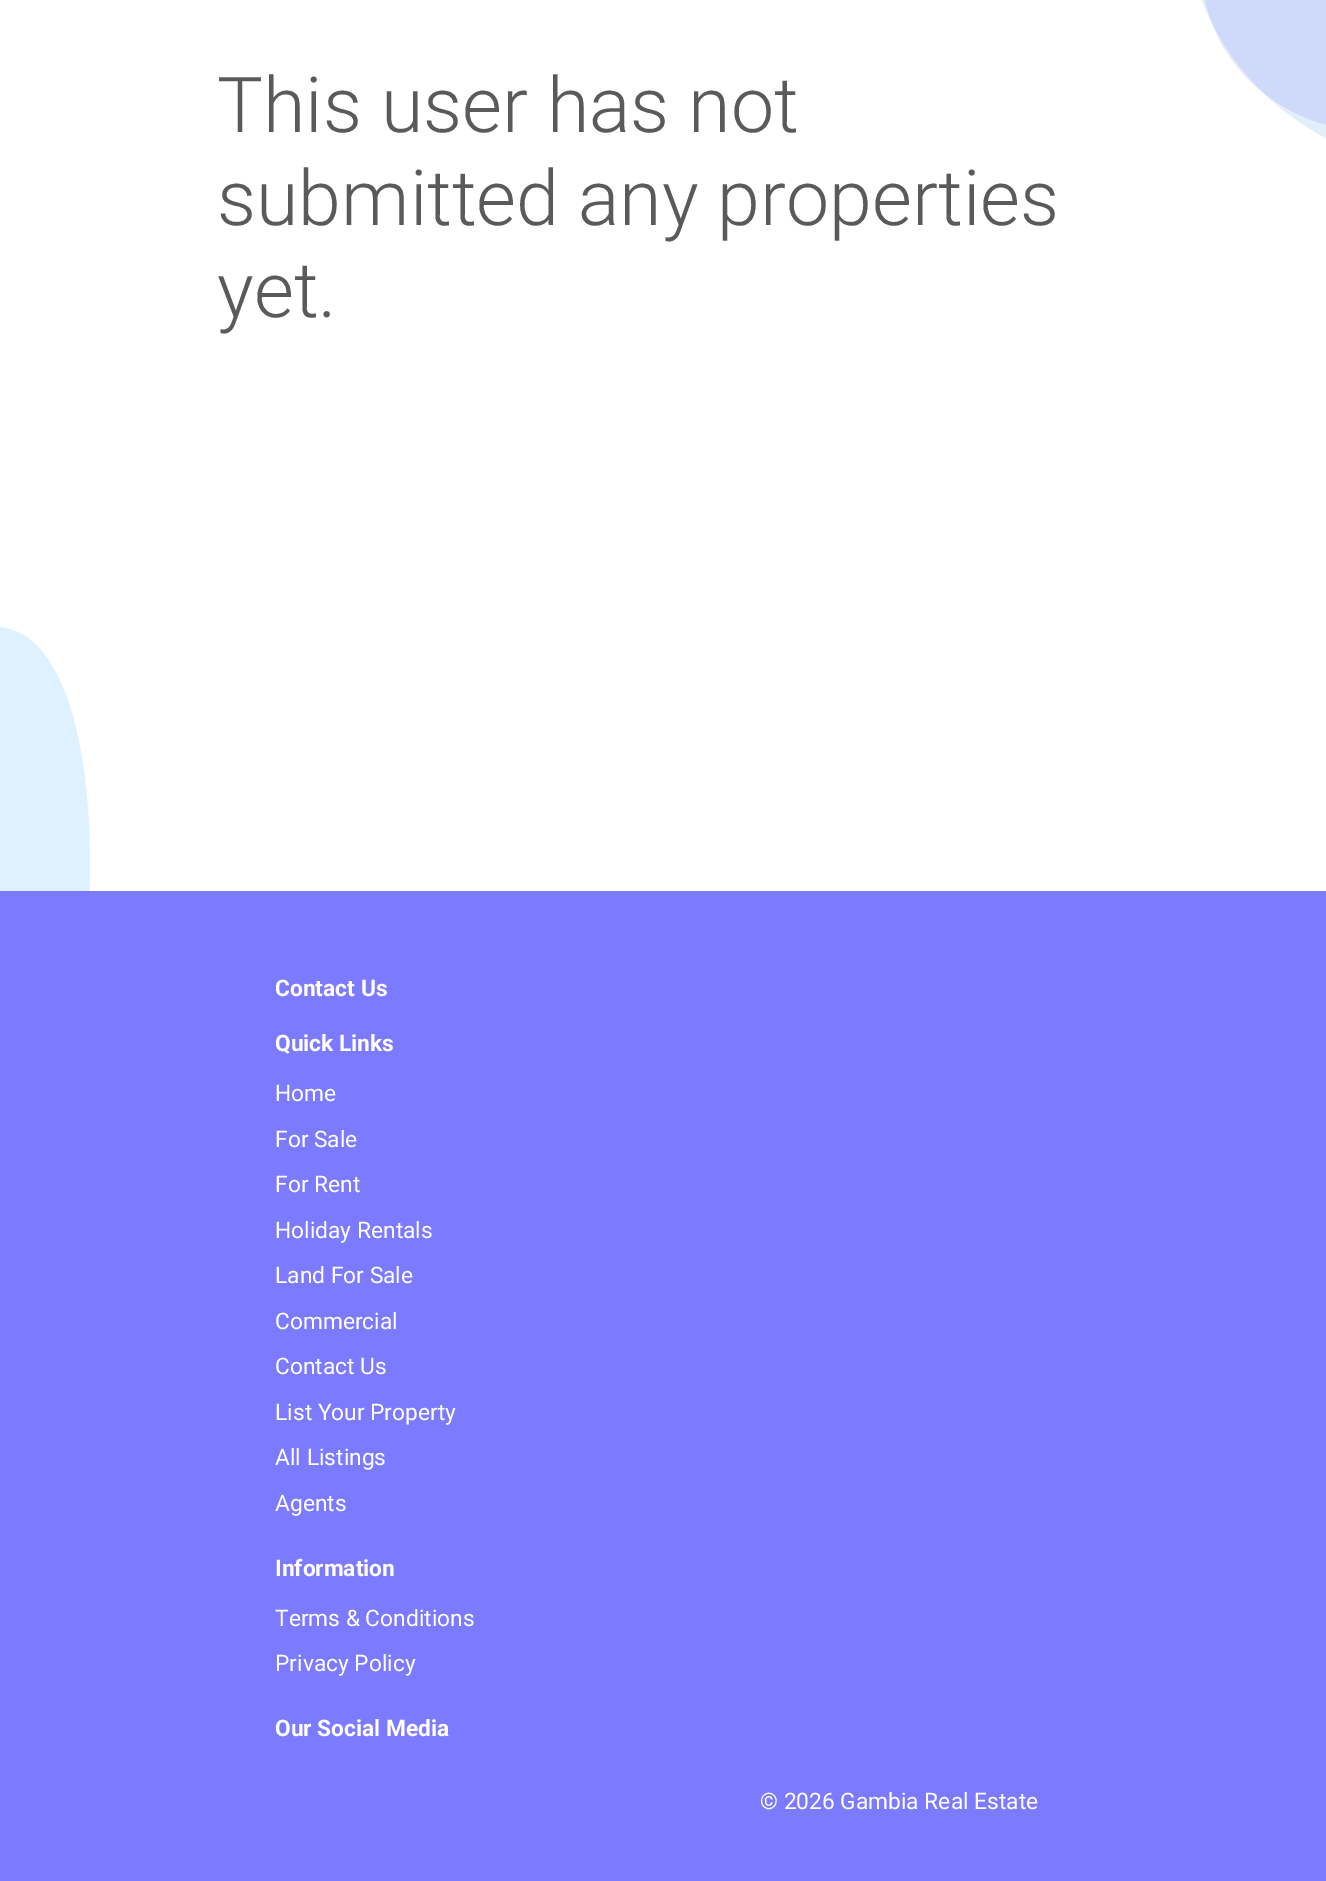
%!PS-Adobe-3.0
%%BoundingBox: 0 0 1326 1881
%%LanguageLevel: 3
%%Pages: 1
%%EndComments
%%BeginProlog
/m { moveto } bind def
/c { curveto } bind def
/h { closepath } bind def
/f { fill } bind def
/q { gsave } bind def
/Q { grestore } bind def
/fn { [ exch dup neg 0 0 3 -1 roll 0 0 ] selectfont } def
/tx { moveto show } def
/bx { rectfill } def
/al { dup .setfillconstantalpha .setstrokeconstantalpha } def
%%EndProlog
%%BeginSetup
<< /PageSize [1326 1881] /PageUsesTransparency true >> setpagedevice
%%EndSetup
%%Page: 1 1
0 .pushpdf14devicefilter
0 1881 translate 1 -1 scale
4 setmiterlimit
0.486 0.482 1 setrgbcolor
0 0 1326 1881 bx
1 setgray
0 0 1326 891 bx
q
0 604 142 287 rectclip
0.875 0.945 1 setrgbcolor
5 628 m 65 638 96 754 89 906 c 87 949 82 992 74 1034 c 37 1245 -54 1405 -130 1392 c -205 1379 -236 1197 -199 986 c -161 775 -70 615 5 628 c h f
Q
/Roboto-Light 77.1 fn
0.353 setgray
(This user has not) 217 132 tx
(submitted any properties) 217 225 tx
(yet.) 217 317 tx
0.886 0.937 0.976 setrgbcolor
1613 -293 m 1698 -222 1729 -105 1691 -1 c 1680 27 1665 52 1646 75 c 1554 185 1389 199 1278 106 c 1167 13 1152 -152 1245 -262 c 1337 -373 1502 -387 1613 -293 c h f
0.19 al
0.486 0.482 1 setrgbcolor
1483 -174 m 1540 -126 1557 -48 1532 18 c 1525 36 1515 53 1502 68 c 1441 141 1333 151 1261 91 c 1188 30 1180 -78 1241 -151 c 1302 -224 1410 -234 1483 -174 c h f
/Roboto-Bold 22.75 fn
1 al
1 setgray
(Contact Us) 275 996 tx
(Quick Links) 275 1051 tx
/Roboto-Regular 22.75 fn
(Home) 275 1101 tx
(For Sale) 275 1147 tx
(For Rent) 275 1192 tx
(Holiday Rentals) 275 1238 tx
(Land For Sale) 275 1283 tx
(Commercial) 275 1329 tx
(Contact Us) 275 1374 tx
(List Your Property) 275 1420 tx
(All Listings) 275 1465 tx
(Agents) 275 1511 tx
/Roboto-Bold 22.75 fn
(Information) 275 1576 tx
/Roboto-Regular 22.75 fn
(Terms & Conditions) 275 1626 tx
(Privacy Policy) 275 1671 tx
/Roboto-Bold 22.75 fn
(Our Social Media) 275 1736 tx
/Roboto-Regular 22.75 fn
(© 2026 Gambia Real Estate) 760 1809 tx
.poppdf14devicefilter showpage
%%EOF
